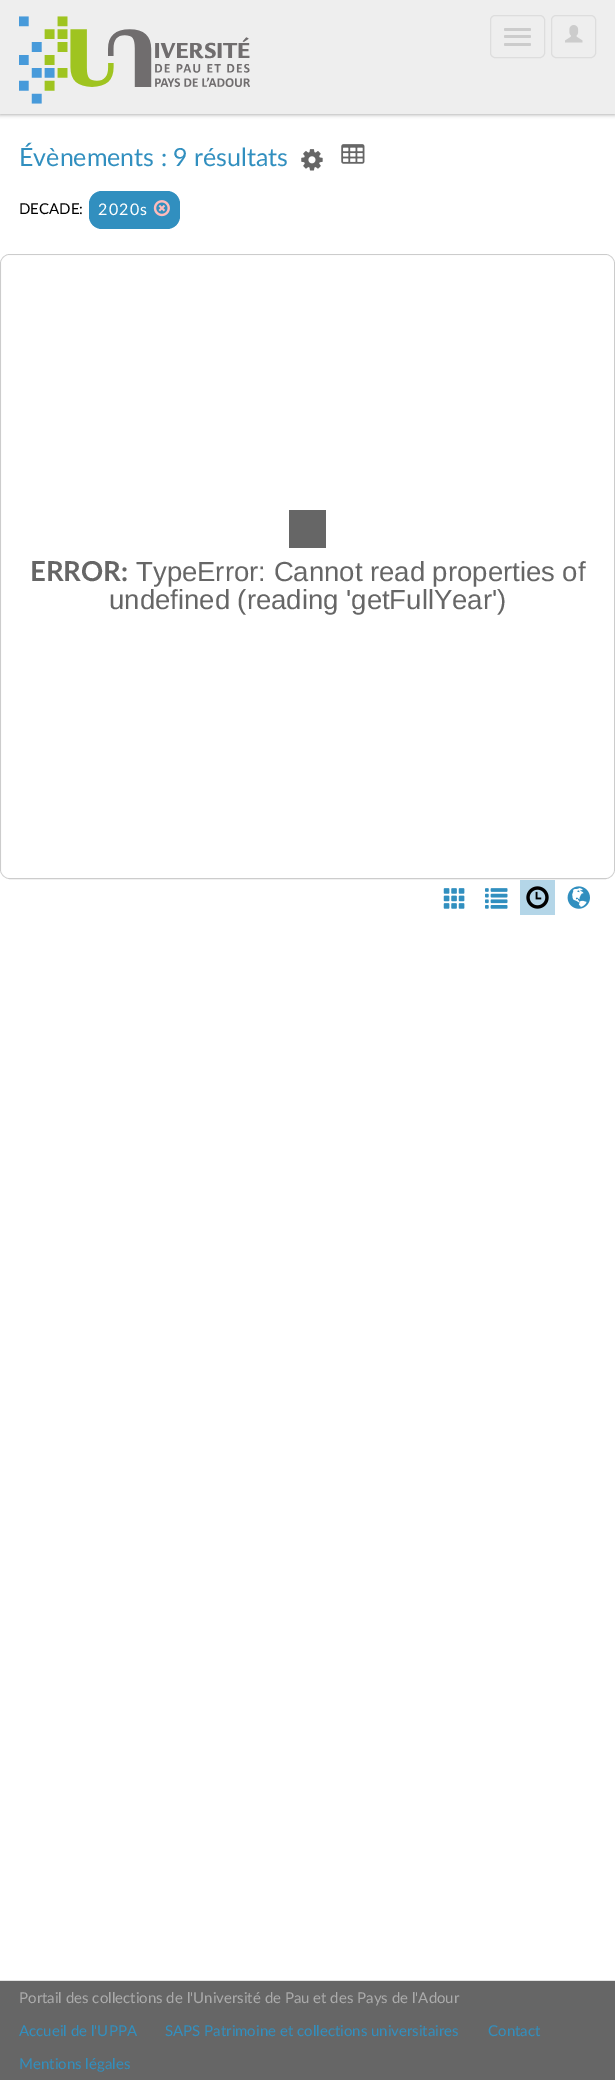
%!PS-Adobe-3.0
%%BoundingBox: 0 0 615 2080
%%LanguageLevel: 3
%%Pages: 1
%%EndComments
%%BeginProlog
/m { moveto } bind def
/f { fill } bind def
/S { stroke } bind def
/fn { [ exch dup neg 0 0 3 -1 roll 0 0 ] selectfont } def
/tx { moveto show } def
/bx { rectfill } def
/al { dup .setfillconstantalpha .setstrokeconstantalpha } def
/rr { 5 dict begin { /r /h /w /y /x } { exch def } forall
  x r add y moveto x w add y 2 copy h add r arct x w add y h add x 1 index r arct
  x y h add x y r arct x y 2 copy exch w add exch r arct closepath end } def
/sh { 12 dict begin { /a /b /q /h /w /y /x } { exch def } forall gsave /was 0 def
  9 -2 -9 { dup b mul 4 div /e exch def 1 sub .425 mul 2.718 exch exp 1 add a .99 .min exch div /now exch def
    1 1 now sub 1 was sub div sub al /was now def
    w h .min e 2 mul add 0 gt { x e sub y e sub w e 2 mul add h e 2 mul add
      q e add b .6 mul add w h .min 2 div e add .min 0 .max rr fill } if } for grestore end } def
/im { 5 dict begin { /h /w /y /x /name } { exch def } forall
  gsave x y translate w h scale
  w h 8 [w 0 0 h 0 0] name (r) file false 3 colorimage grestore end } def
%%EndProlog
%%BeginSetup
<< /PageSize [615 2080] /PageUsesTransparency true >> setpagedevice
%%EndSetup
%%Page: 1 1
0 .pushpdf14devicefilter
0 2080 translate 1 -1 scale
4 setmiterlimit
1 setgray
0 0 615 2080 bx
0 setgray
0 1 615 114 0 2 0.3 sh
0.933 setgray
0 0 615 114 bx
(image0.raw) 19 16 231 88 im
0.867 setgray
490.5 15.5 54 42 4.5 rr S
0.8 setgray
504 28 27 3 1.5 rr f
504 35 27 3 1.5 rr f
504 43 27 3 1.5 rr f
0.867 setgray
551.5 15.5 44 42 4.5 rr S
(image1.raw) 565 25 18 18 im
/Lato-Regular 25 fn
0.192 0.561 0.749 setrgbcolor
(Évènements : 9 résultats) 19 166 tx
(image2.raw) 301 149 22 22 im
(image3.raw) 341 144 24 20 im
/Lato-Regular 15 fn
0 setgray
(DECADE:) 19 214 tx
0.192 0.561 0.749 setrgbcolor
89 191 91 38 13 rr f
/Lato-Regular 16 fn
1 setgray
98 215 m 1.25 0 (2020s) ashow
(image4.raw) 153 200 17 17 im
0.8 setgray
0.5 254.5 614 624 9.5 rr S
0.8 al
1 setgray
1 255 613 623 9 rr f
1 al
0.4 setgray
289 510 37 38 bx
/Lato-Bold 27.5 fn
(ERROR:) 30 581 tx
/LiberationSans-Regular 27.5 fn
(TypeError: Cannot read properties of) 136 581 tx
(undefined \(reading 'getFullYear'\)) 109 609 tx
(image5.raw) 443 888 22 21 im
(image6.raw) 485 888 23 21 im
0.706 0.839 0.91 setrgbcolor
520 880 35 35 bx
(image7.raw) 526 886 23 23 im
(image8.raw) 567 886 23 23 im
0.4 setgray
0 1981 615 99 bx
0.89 setgray
0 1980 615 1 bx
/Lato-Regular 15 fn
0.671 setgray
(Portail des collections de l'Université de Pau et des Pays de l'Adour) 19 2003 tx
0.192 0.561 0.749 setrgbcolor
(Accueil de l'UPPA) 19 2036 tx
(SAPS Patrimoine et collections universitaires) 165 2036 tx
(Contact) 488 2036 tx
(Mentions légales) 19 2069 tx
.poppdf14devicefilter showpage
%%EOF
